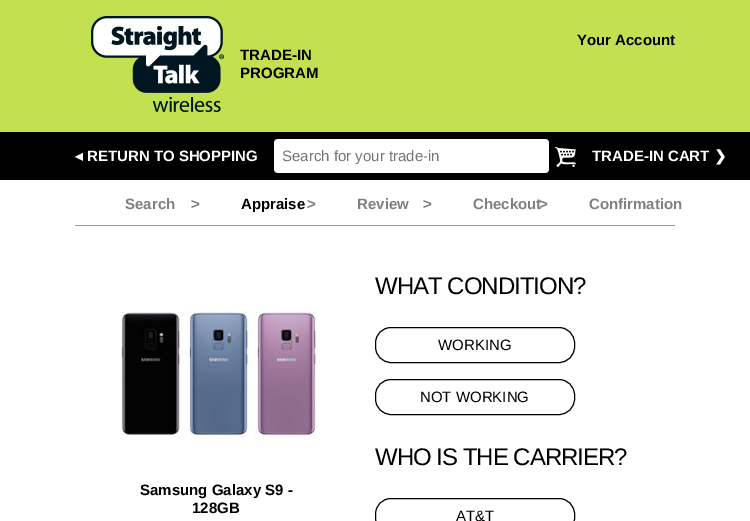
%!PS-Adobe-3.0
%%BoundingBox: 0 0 750 521
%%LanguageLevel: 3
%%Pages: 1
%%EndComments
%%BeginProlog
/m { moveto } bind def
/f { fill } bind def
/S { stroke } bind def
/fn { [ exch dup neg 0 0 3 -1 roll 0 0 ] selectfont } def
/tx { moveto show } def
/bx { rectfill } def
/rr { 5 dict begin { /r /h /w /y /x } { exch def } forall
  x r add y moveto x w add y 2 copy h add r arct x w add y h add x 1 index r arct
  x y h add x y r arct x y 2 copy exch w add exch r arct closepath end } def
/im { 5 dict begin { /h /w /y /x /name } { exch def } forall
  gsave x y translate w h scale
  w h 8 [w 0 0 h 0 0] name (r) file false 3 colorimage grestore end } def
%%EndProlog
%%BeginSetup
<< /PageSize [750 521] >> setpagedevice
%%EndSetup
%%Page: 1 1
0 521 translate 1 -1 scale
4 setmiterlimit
1 setgray
0 0 750 521 bx
0.765 0.878 0.318 setrgbcolor
0 0 750 132 bx
/LiberationSans-Bold 15 fn
0 setgray
(Your Account) 577 45 tx
(image0.raw) 91 16 133 96 im
(TRADE-IN) 240 60 tx
(PROGRAM) 240 78 tx
0 132 750 48 bx
/DejaVuSans-Bold 15 fn
1 setgray
(◂) 75 161 tx
/LiberationSans-Bold 15 fn
(RETURN TO SHOPPING) 87 161 tx
274 139 275 34 4 rr f
/LiberationSans-Regular 15 fn
0.459 setgray
(Search for your trade-in) 282 161 tx
(image1.raw) 555 147 21 20 im
/LiberationSans-Bold 15 fn
1 setgray
(TRADE-IN CART) 592 161 tx
/DejaVuSans-Bold 15 fn
(❯) 714 161 tx
/LiberationSans-Bold 15 fn
0.502 setgray
(Search) 125 209 tx
(>) 191 209 tx
0 setgray
(Appraise) 241 209 tx
0.502 setgray
(>) 307 209 tx
(Review) 357 209 tx
(>) 423 209 tx
(Checkout) 473 209 tx
(>) 539 209 tx
(Confirmation) 589 209 tx
0.6 setgray
75 225 600 1 bx
(image2.raw) 121 308 196 136 im
0 setgray
(Samsung Galaxy S9 -) 140 495 tx
(128GB) 192 513 tx
/LiberationSans-Regular 24 fn
375 294 m -1 0 (WHAT CONDITION?) ashow
375.5 327.5 199 35 15.5 rr S
/LiberationSans-Regular 15 fn
(WORKING) 438 350 tx
375.5 379.5 199 35 15.5 rr S
(NOT WORKING) 420 402 tx
/LiberationSans-Regular 24 fn
375 465 m -1 0 (WHO IS THE CARRIER?) ashow
375.5 498.5 199 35 15.5 rr S
/LiberationSans-Regular 15 fn
(AT&T) 456 521 tx
showpage
%%EOF
